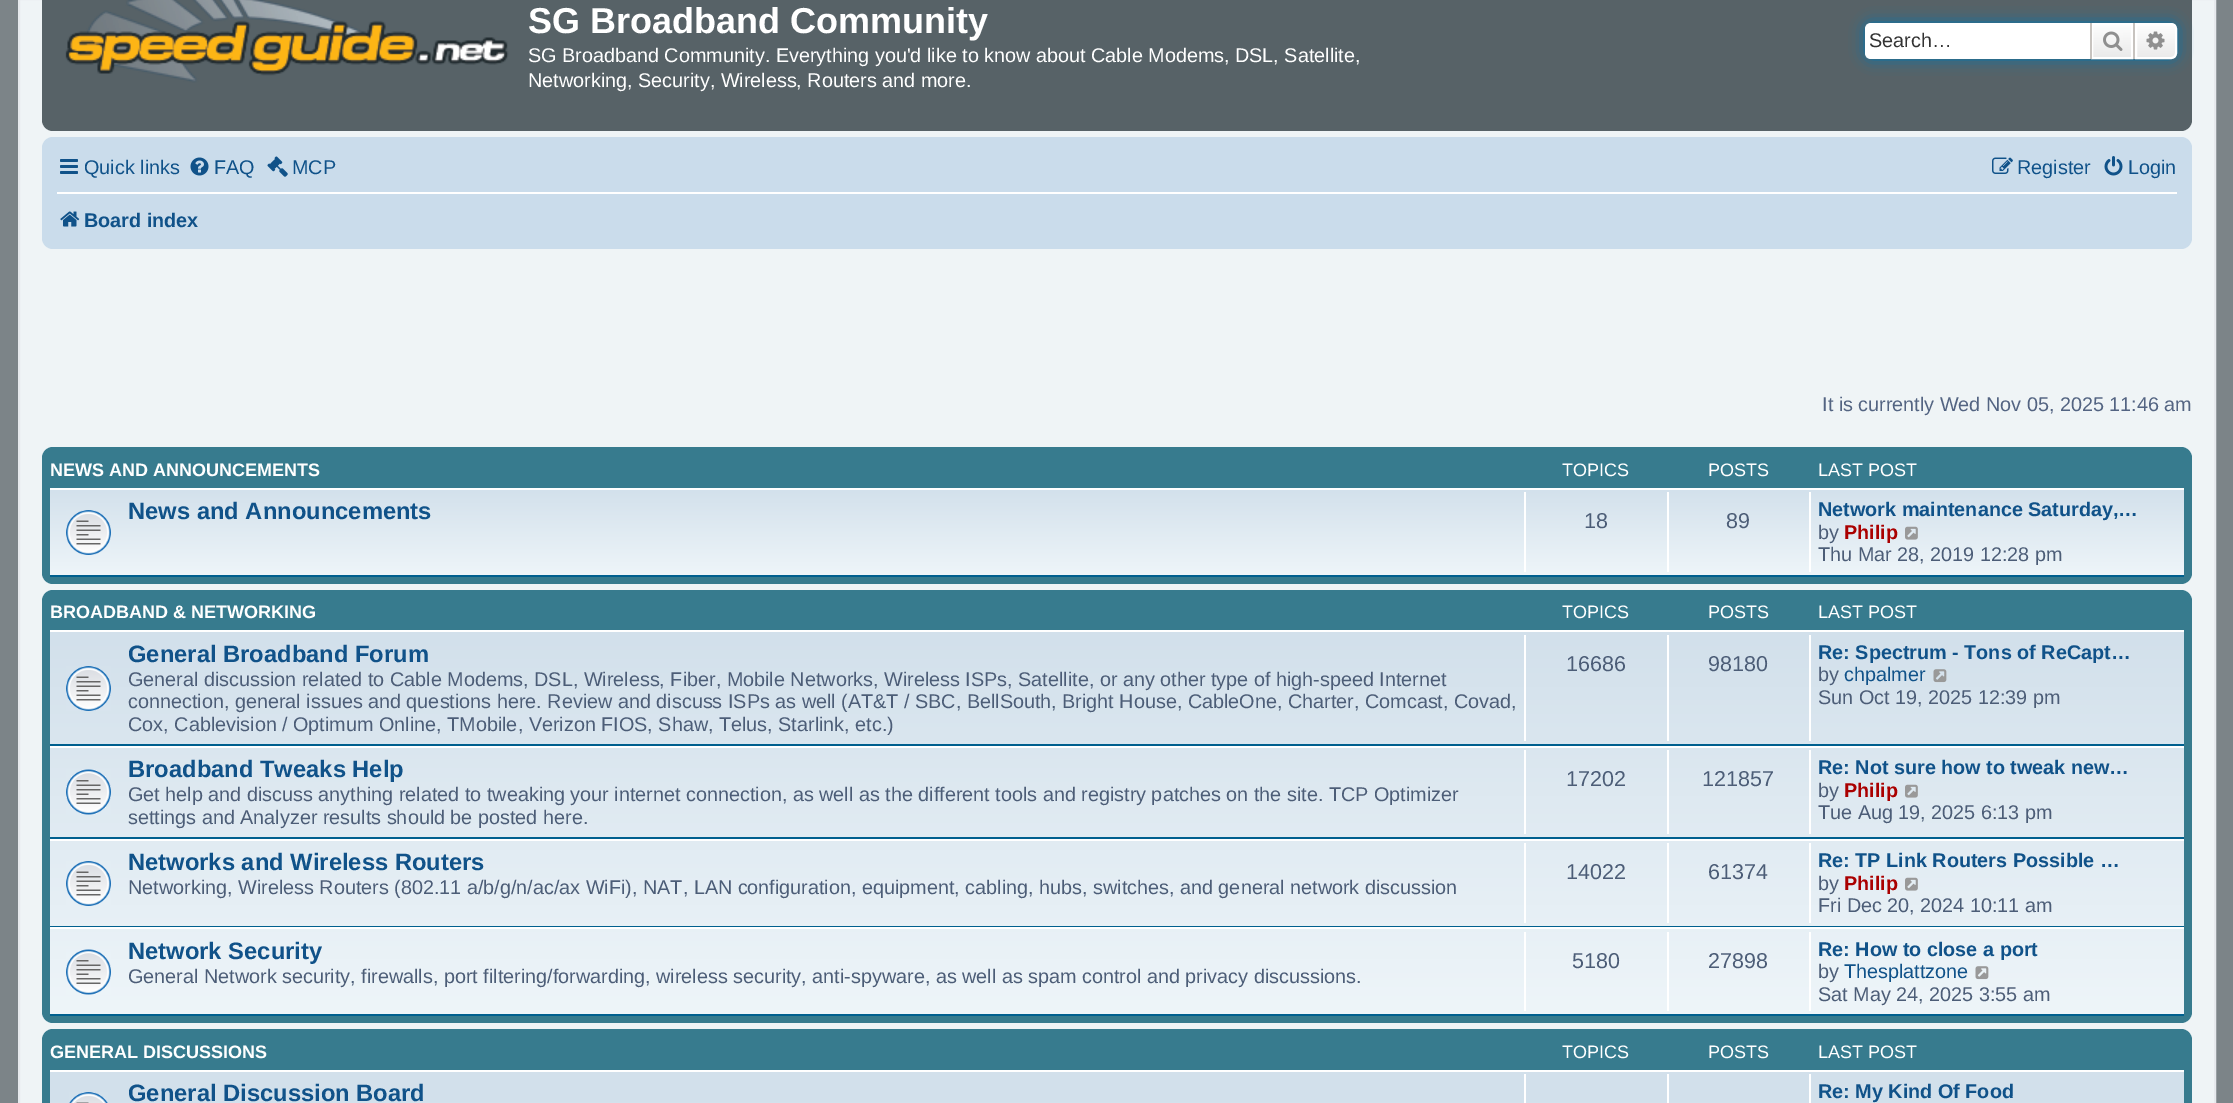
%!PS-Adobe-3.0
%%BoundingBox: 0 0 2233 1103
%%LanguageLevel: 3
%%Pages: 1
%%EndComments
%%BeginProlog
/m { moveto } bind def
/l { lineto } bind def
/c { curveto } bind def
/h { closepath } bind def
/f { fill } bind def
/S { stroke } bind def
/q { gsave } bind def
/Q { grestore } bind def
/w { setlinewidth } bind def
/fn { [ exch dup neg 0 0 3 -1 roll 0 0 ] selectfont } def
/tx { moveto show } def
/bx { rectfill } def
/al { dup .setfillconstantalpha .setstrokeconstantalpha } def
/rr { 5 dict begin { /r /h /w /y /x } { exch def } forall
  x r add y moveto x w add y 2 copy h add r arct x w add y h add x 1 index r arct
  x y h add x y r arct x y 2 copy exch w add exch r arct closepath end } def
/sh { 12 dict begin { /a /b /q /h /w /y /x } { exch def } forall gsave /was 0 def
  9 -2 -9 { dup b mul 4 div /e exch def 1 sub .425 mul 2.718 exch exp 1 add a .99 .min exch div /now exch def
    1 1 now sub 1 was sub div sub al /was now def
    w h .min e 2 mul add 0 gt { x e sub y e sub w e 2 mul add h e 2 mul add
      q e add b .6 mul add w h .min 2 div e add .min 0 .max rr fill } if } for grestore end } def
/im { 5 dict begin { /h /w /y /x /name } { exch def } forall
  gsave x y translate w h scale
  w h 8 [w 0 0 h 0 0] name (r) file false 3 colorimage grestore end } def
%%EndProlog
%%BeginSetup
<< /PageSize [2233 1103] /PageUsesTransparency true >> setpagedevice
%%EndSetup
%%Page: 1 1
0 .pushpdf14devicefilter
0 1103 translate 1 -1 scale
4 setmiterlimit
0.486 0.518 0.533 setrgbcolor
0 0 2233 1103 bx
0.937 0.957 0.965 setrgbcolor
19 -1 m 2215 -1 l 2215 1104 l 19 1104 l h q f Q
0.902 0.914 0.929 setrgbcolor
2 w
S
0.341 0.384 0.404 setrgbcolor
42 -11 2150 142 11 rr f
(image0.raw) 65 0 444 83 im
/LiberationSans-Bold 36 fn
1 setgray
(SG Broadband Community) 528 33 tx
/LiberationSans-Regular 19.8 fn
(SG Broadband Community. Everything you'd like to know about Cable Modems, DSL, Satellite,) 528 62 tx
(Networking, Security, Wireless, Routers and more.) 528 87 tx
0 0.459 0.69 setrgbcolor
1865 23 312 36 6 7.5 1 sh
1 setgray
1871 23 m 2090 23 l 2090 59 l 1871 59 l 1867.5 59 1865 56.5 1865 53 c 1865 29 l 1865 25.5 1867.5 23 1871 23 c h f
0.2 setgray
(Search…) 1869 47 tx
q 2093 25 m 2131 25 l 2131 57 l 2093 57 l h clip newpath
<< /ShadingType 2 /ColorSpace /DeviceRGB /Coords [2112 22 2112 59] /Extend [true true] /Function << /FunctionType 2 /Domain [0 1] /C0 [1 1 1] /C1 [0.914 0.914 0.914] /N 1 >> >> shfill Q
1 setgray
2092 24 40 34 rectstroke
0.78 0.765 0.749 setrgbcolor
2133 23 2 36 bx
2090 23 2 36 bx
(image1.raw) 2103 31 20 20 im
q 2136 24 m 2171 24 l 2174 24 2176 26 2176 29 c 2176 53 l 2176 56 2174 58 2171 58 c 2136 58 l h clip newpath
<< /ShadingType 2 /ColorSpace /DeviceRGB /Coords [2156 22 2156 59] /Extend [true true] /Function << /FunctionType 2 /Domain [0 1] /C0 [1 1 1] /C1 [0.914 0.914 0.914] /N 1 >> >> shfill Q
1 setgray
2136 24 m 2171 24 l 2174 24 2176 26 2176 29 c 2176 53 l 2176 56 2174 58 2171 58 c 2136 58 l h S
(image2.raw) 2146 31 19 19 im
0.792 0.863 0.922 setrgbcolor
42 137 2150 112 11 rr f
(image3.raw) 60 159 18 15 im
0.063 0.322 0.537 setrgbcolor
(Quick links) 84 174 tx
(image4.raw) 190 157 19 19 im
(FAQ) 214 174 tx
(image5.raw) 267 156 21 21 im
(MCP) 292 174 tx
(image6.raw) 1992 157 21 17 im
(Register) 2017 174 tx
(image7.raw) 2104 156 19 20 im
(Login) 2128 174 tx
1 setgray
57 192 2120 2 bx
(image8.raw) 60 211 20 16 im
/LiberationSans-Bold 19.8 fn
0.063 0.322 0.537 setrgbcolor
(Board index) 84 227 tx
/LiberationSans-Regular 19.8 fn
0.325 0.392 0.51 setrgbcolor
(It is currently Wed Nov 05, 2025 11:46 am) 1822 411 tx
0.216 0.482 0.557 setrgbcolor
42 447 2150 137 11 rr f
/LiberationSans-Bold 18 fn
1 setgray
(NEWS AND ANNOUNCEMENTS) 50 476 tx
/LiberationSans-Regular 18 fn
(TOPICS) 1562 476 tx
(POSTS) 1708 476 tx
(LAST POST) 1818 476 tx
q 50 490 m 2184 490 l 2184 575 l 50 575 l h clip newpath
<< /ShadingType 2 /ColorSpace /DeviceRGB /Coords [1117 487 1117 576] /Extend [true true] /Function << /FunctionType 2 /Domain [0 1] /C0 [0.824 0.878 0.922] /C1 [0.933 0.961 0.976] /N 1 >> >> shfill Q
50 488 2134 2 bx
0 0.376 0.561 setrgbcolor
50 575 2134 2 bx
(image9.raw) 66 510 45 45 im
/LiberationSans-Bold 23.75 fn
0.063 0.322 0.537 setrgbcolor
(News and Announcements) 128 519 tx
1 setgray
1524 492 2 80 bx
/LiberationSans-Regular 21.5 fn
0.298 0.365 0.467 setrgbcolor
(18) 1584 528 tx
1 setgray
1667 492 2 80 bx
0.298 0.365 0.467 setrgbcolor
(89) 1726 528 tx
1 setgray
1809 492 2 80 bx
/LiberationSans-Bold 19.8 fn
0.063 0.322 0.537 setrgbcolor
(Network maintenance Saturday,…) 1818 516 tx
/LiberationSans-Regular 19.8 fn
0.298 0.365 0.467 setrgbcolor
(by) 1818 539 tx
/LiberationSans-Bold 19.8 fn
0.667 0 0 setrgbcolor
(Philip) 1844 539 tx
(image10.raw) 1905 526 13 14 im
/LiberationSans-Regular 19.8 fn
0.298 0.365 0.467 setrgbcolor
(Thu Mar 28, 2019 12:28 pm) 1818 561 tx
0.216 0.482 0.557 setrgbcolor
42 590 2150 433 11 rr f
/LiberationSans-Bold 18 fn
1 setgray
(BROADBAND & NETWORKING) 50 618 tx
/LiberationSans-Regular 18 fn
(TOPICS) 1562 618 tx
(POSTS) 1708 618 tx
(LAST POST) 1818 618 tx
q 50 632 m 2184 632 l 2184 1014 l 50 1014 l h clip newpath
<< /ShadingType 2 /ColorSpace /DeviceRGB /Coords [1117 630 1117 1016] /Extend [true true] /Function << /FunctionType 2 /Domain [0 1] /C0 [0.824 0.878 0.922] /C1 [0.933 0.961 0.976] /N 1 >> >> shfill Q
50 630 2134 2 bx
0 0.376 0.561 setrgbcolor
50 744 2134 2 bx
(image11.raw) 66 666 45 45 im
/LiberationSans-Bold 23.75 fn
0.063 0.322 0.537 setrgbcolor
(General Broadband Forum) 128 662 tx
/LiberationSans-Regular 19.8 fn
0.298 0.365 0.467 setrgbcolor
(General discussion related to Cable Modems, DSL, Wireless, Fiber, Mobile Networks, Wireless ISPs, Satellite, or any other type of high-speed Internet) 128 686 tx
(connection, general issues and questions here. Review and discuss ISPs as well \(AT&T / SBC, BellSouth, Bright House, CableOne, Charter, Comcast, Covad,) 128 708 tx
(Cox, Cablevision / Optimum Online, TMobile, Verizon FIOS, Shaw, Telus, Starlink, etc.\)) 128 731 tx
1 setgray
1524 635 2 106 bx
/LiberationSans-Regular 21.5 fn
0.298 0.365 0.467 setrgbcolor
(16686) 1566 671 tx
1 setgray
1667 635 2 106 bx
0.298 0.365 0.467 setrgbcolor
(98180) 1708 671 tx
1 setgray
1809 635 2 106 bx
/LiberationSans-Bold 19.8 fn
0.063 0.322 0.537 setrgbcolor
(Re: Spectrum - Tons of ReCapt…) 1818 659 tx
/LiberationSans-Regular 19.8 fn
0.298 0.365 0.467 setrgbcolor
(by) 1818 681 tx
0.063 0.322 0.537 setrgbcolor
(chpalmer) 1844 681 tx
(image12.raw) 1933 669 14 14 im
0.298 0.365 0.467 setrgbcolor
(Sun Oct 19, 2025 12:39 pm) 1818 704 tx
1 setgray
50 746 2134 2 bx
0 0.376 0.561 setrgbcolor
50 837 2134 2 bx
(image13.raw) 66 769 45 46 im
/LiberationSans-Bold 23.75 fn
0.063 0.322 0.537 setrgbcolor
(Broadband Tweaks Help) 128 777 tx
/LiberationSans-Regular 19.8 fn
0.298 0.365 0.467 setrgbcolor
(Get help and discuss anything related to tweaking your internet connection, as well as the different tools and registry patches on the site. TCP Optimizer) 128 801 tx
(settings and Analyzer results should be posted here.) 128 824 tx
1 setgray
1524 750 2 84 bx
/LiberationSans-Regular 21.5 fn
0.298 0.365 0.467 setrgbcolor
(17202) 1566 786 tx
1 setgray
1667 750 2 84 bx
0.298 0.365 0.467 setrgbcolor
(121857) 1702 786 tx
1 setgray
1809 750 2 84 bx
/LiberationSans-Bold 19.8 fn
0.063 0.322 0.537 setrgbcolor
(Re: Not sure how to tweak new…) 1818 774 tx
/LiberationSans-Regular 19.8 fn
0.298 0.365 0.467 setrgbcolor
(by) 1818 797 tx
/LiberationSans-Bold 19.8 fn
0.667 0 0 setrgbcolor
(Philip) 1844 797 tx
(image14.raw) 1905 784 13 14 im
/LiberationSans-Regular 19.8 fn
0.298 0.365 0.467 setrgbcolor
(Tue Aug 19, 2025 6:13 pm) 1818 819 tx
1 setgray
50 839 2134 2 bx
0 0.376 0.561 setrgbcolor
50 926 2134 1 bx
(image15.raw) 66 861 45 45 im
/LiberationSans-Bold 23.75 fn
0.063 0.322 0.537 setrgbcolor
(Networks and Wireless Routers) 128 870 tx
/LiberationSans-Regular 19.8 fn
0.298 0.365 0.467 setrgbcolor
(Networking, Wireless Routers \(802.11 a/b/g/n/ac/ax WiFi\), NAT, LAN configuration, equipment, cabling, hubs, switches, and general network discussion) 128 894 tx
1 setgray
1524 843 2 80 bx
/LiberationSans-Regular 21.5 fn
0.298 0.365 0.467 setrgbcolor
(14022) 1566 879 tx
1 setgray
1667 843 2 80 bx
0.298 0.365 0.467 setrgbcolor
(61374) 1708 879 tx
1 setgray
1809 843 2 80 bx
/LiberationSans-Bold 19.8 fn
0.063 0.322 0.537 setrgbcolor
(Re: TP Link Routers Possible …) 1818 867 tx
/LiberationSans-Regular 19.8 fn
0.298 0.365 0.467 setrgbcolor
(by) 1818 890 tx
/LiberationSans-Bold 19.8 fn
0.667 0 0 setrgbcolor
(Philip) 1844 890 tx
(image16.raw) 1905 877 13 14 im
/LiberationSans-Regular 19.8 fn
0.298 0.365 0.467 setrgbcolor
(Fri Dec 20, 2024 10:11 am) 1818 912 tx
1 setgray
50 927 2134 2 bx
0 0.376 0.561 setrgbcolor
50 1014 2134 2 bx
(image17.raw) 66 949 45 46 im
/LiberationSans-Bold 23.75 fn
0.063 0.322 0.537 setrgbcolor
(Network Security) 128 959 tx
/LiberationSans-Regular 19.8 fn
0.298 0.365 0.467 setrgbcolor
(General Network security, firewalls, port filtering/forwarding, wireless security, anti-spyware, as well as spam control and privacy discussions.) 128 983 tx
1 setgray
1524 932 2 79 bx
/LiberationSans-Regular 21.5 fn
0.298 0.365 0.467 setrgbcolor
(5180) 1572 968 tx
1 setgray
1667 932 2 79 bx
0.298 0.365 0.467 setrgbcolor
(27898) 1708 968 tx
1 setgray
1809 932 2 79 bx
/LiberationSans-Bold 19.8 fn
0.063 0.322 0.537 setrgbcolor
(Re: How to close a port) 1818 956 tx
/LiberationSans-Regular 19.8 fn
0.298 0.365 0.467 setrgbcolor
(by) 1818 978 tx
0.063 0.322 0.537 setrgbcolor
(Thesplattzone) 1844 978 tx
(image18.raw) 1975 966 14 14 im
0.298 0.365 0.467 setrgbcolor
(Sat May 24, 2025 3:55 am) 1818 1001 tx
0.216 0.482 0.557 setrgbcolor
42 1029 2150 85 11 rr f
/LiberationSans-Bold 18 fn
1 setgray
(GENERAL DISCUSSIONS) 50 1058 tx
/LiberationSans-Regular 18 fn
(TOPICS) 1562 1058 tx
(POSTS) 1708 1058 tx
(LAST POST) 1818 1058 tx
q 50 1072 m 2184 1072 l 2184 1103 l 50 1103 l h clip newpath
<< /ShadingType 2 /ColorSpace /DeviceRGB /Coords [1117 1069 1117 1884] /Extend [true true] /Function << /FunctionType 2 /Domain [0 1] /C0 [0.824 0.878 0.922] /C1 [0.933 0.961 0.976] /N 1 >> >> shfill Q
50 1070 2134 2 bx
(image19.raw) 69 1092 39 11 im
/LiberationSans-Bold 23.75 fn
0.063 0.322 0.537 setrgbcolor
(General Discussion Board) 128 1101 tx
1 setgray
1524 1074 2 29 bx
1667 1074 2 29 bx
1809 1074 2 29 bx
/LiberationSans-Bold 19.8 fn
0.063 0.322 0.537 setrgbcolor
(Re: My Kind Of Food) 1818 1098 tx
.poppdf14devicefilter showpage
%%EOF
